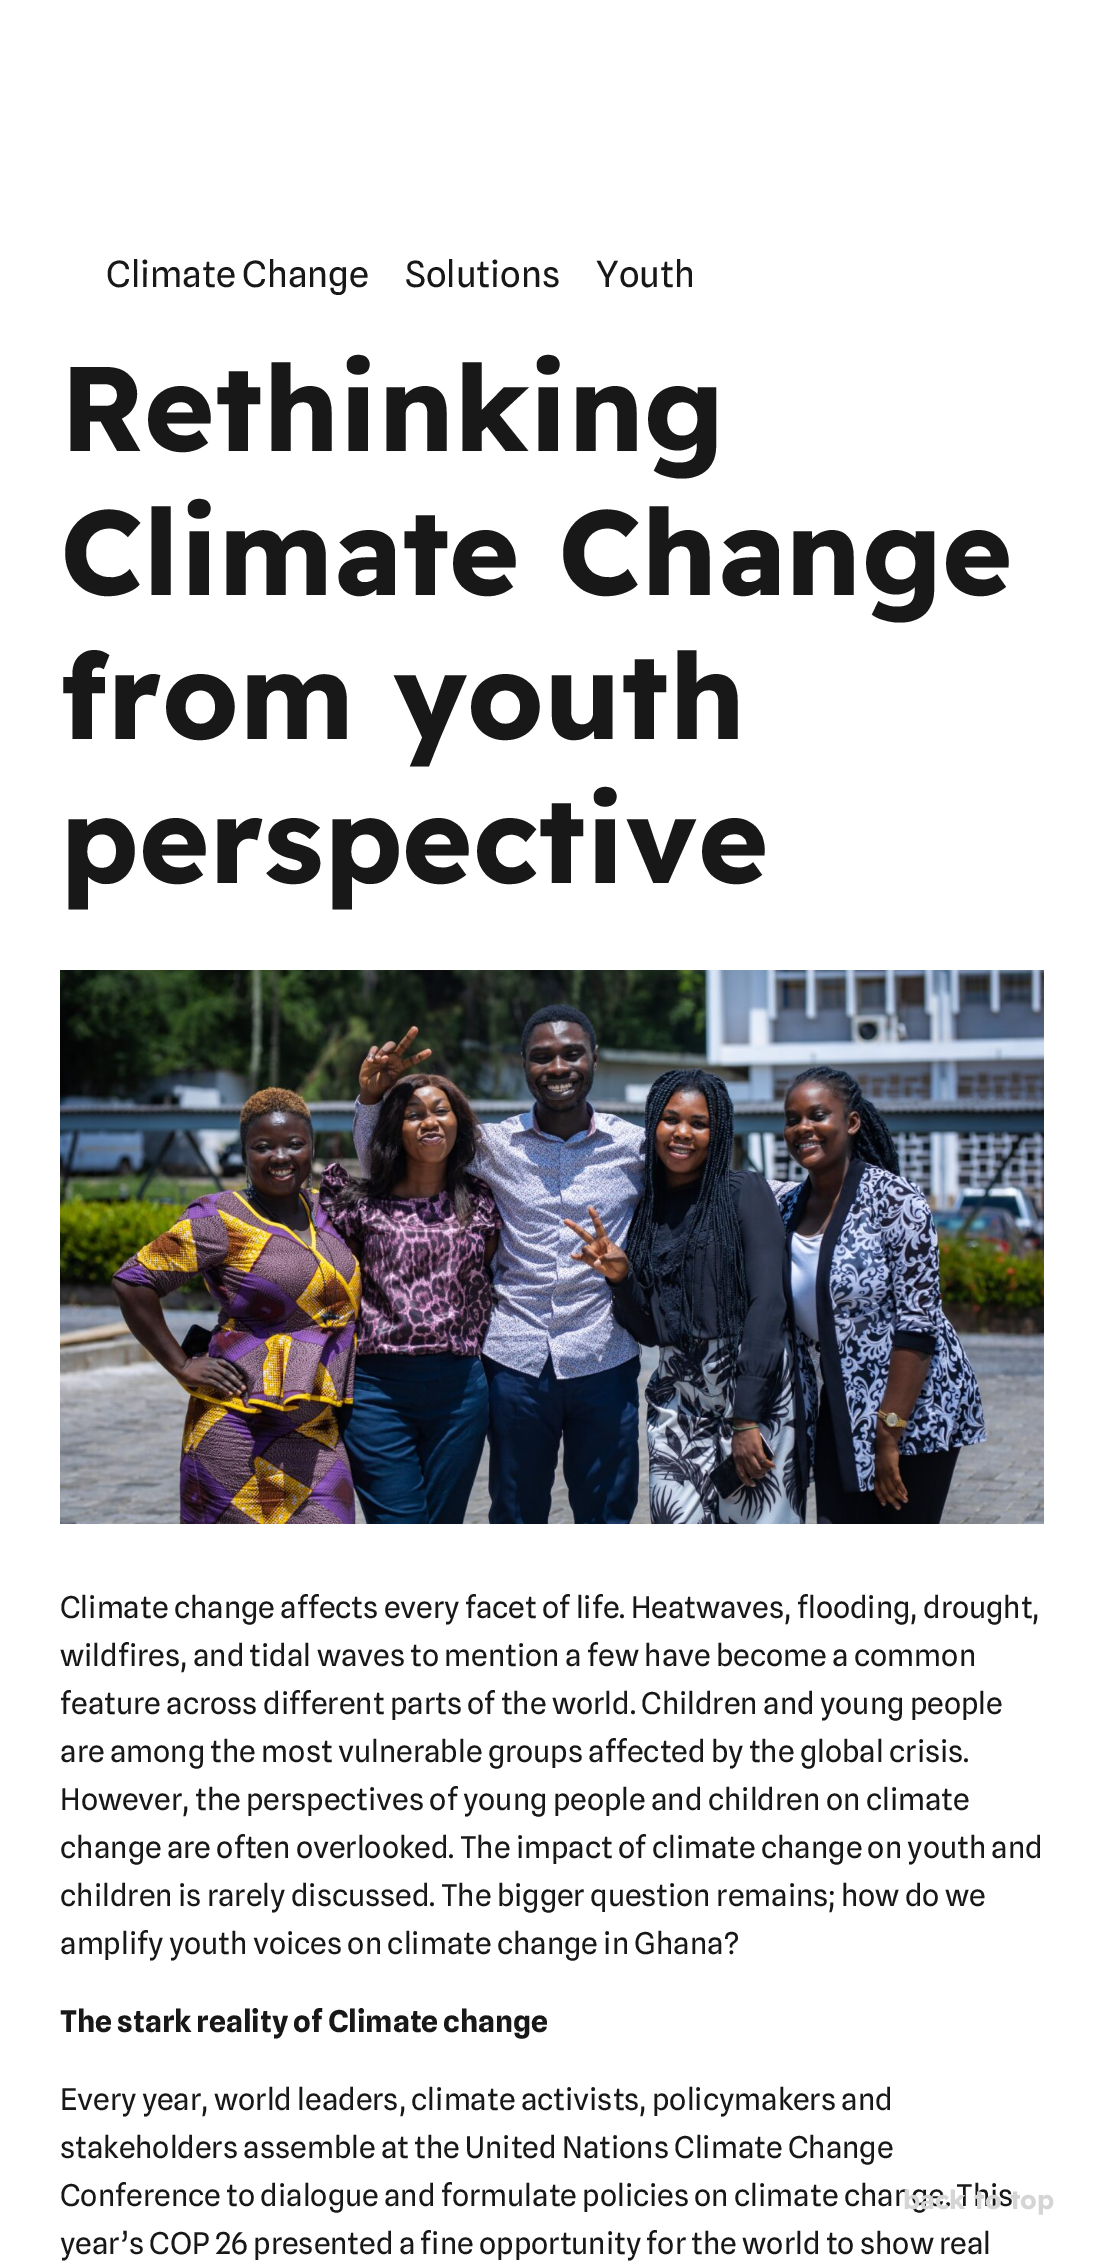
%!PS-Adobe-3.0
%%BoundingBox: 0 0 1104 2264
%%LanguageLevel: 3
%%Pages: 1
%%EndComments
%%BeginProlog
/fn { [ exch dup neg 0 0 3 -1 roll 0 0 ] selectfont } def
/tx { moveto show } def
/bx { rectfill } def
/im { 5 dict begin { /h /w /y /x /name } { exch def } forall
  gsave x y translate w h scale
  w h 8 [w 0 0 h 0 0] name (r) file false 3 colorimage grestore end } def
%%EndProlog
%%BeginSetup
<< /PageSize [1104 2264] >> setpagedevice
%%EndSetup
%%Page: 1 1
0 2264 translate 1 -1 scale
4 setmiterlimit
1 setgray
0 0 1104 2264 bx
/SplineSans-Regular 36 fn
0.094 setgray
(Climate Change) 106 287 tx
(Solutions) 405 287 tx
(Youth) 596 287 tx
/ReadexPro-Bold 120 fn
(Rethinking) 60 451 tx
(Climate Change) 60 595 tx
(from youth) 60 739 tx
(perspective) 60 883 tx
(image0.raw) 60 970 984 554 im
/SplineSans-Regular 30 fn
(Climate change affects every facet of life. Heatwaves, flooding, drought,) 60 1618 tx
(wildfires, and tidal waves to mention a few have become a common) 60 1666 tx
(feature across different parts of the world. Children and young people) 60 1714 tx
(are among the most vulnerable groups affected by the global crisis.) 60 1762 tx
(However, the perspectives of young people and children on climate) 60 1810 tx
(change are often overlooked. The impact of climate change on youth and) 60 1858 tx
(children is rarely discussed. The bigger question remains; how do we) 60 1906 tx
(amplify youth voices on climate change in Ghana?) 60 1954 tx
/SplineSans-Bold 30 fn
(The stark reality of Climate change) 60 2032 tx
/SplineSans-Regular 30 fn
(Every year, world leaders, climate activists, policymakers and) 60 2110 tx
(stakeholders assemble at the United Nations Climate Change) 60 2158 tx
(Conference to dialogue and formulate policies on climate change. This) 60 2206 tx
(year’s COP 26 presented a fine opportunity for the world to show real) 60 2254 tx
/ReadexPro-Bold 26.25 fn
0.835 setgray
(back to top) 903 2209 tx
showpage
%%EOF
